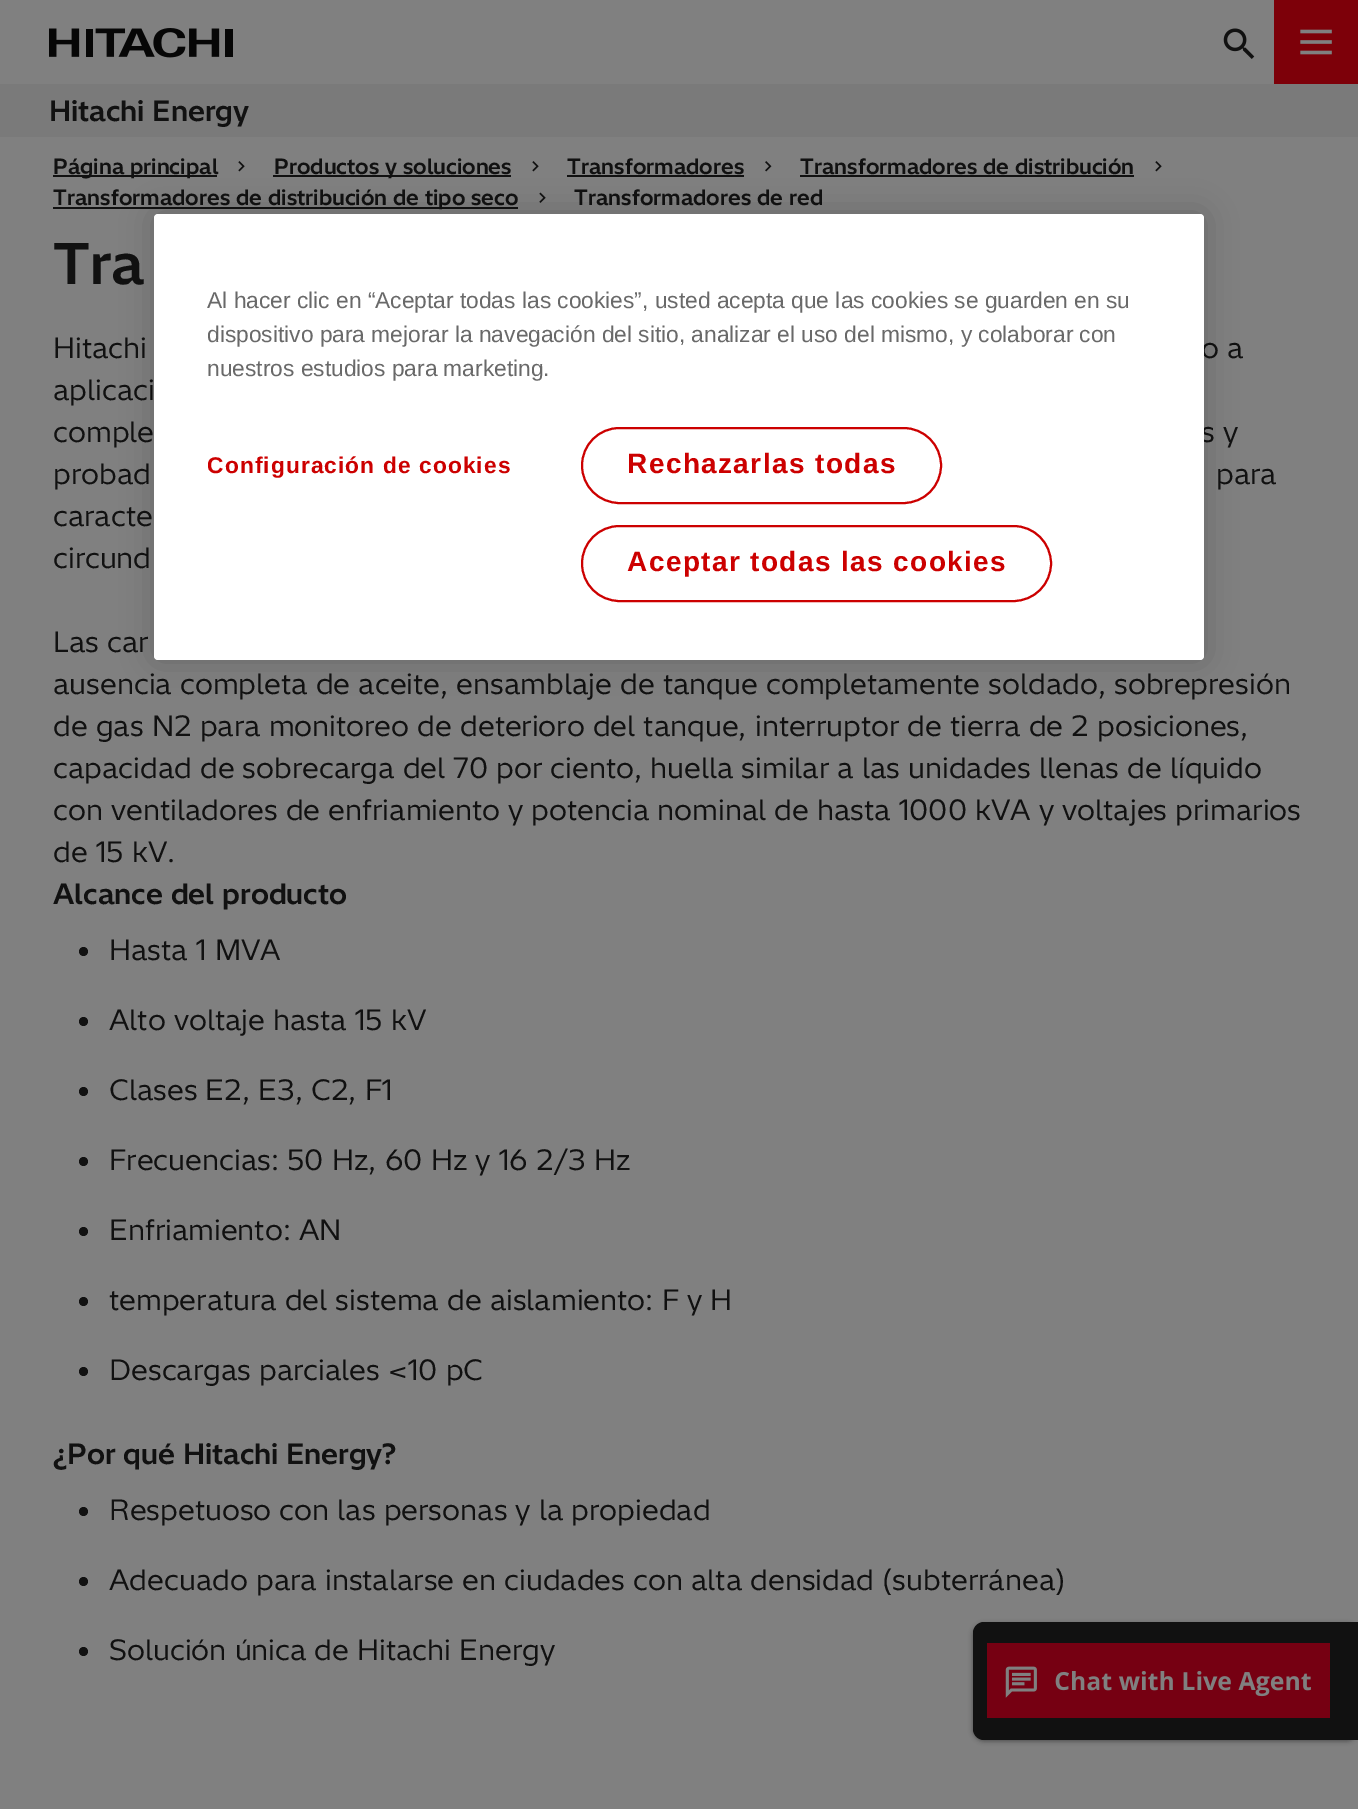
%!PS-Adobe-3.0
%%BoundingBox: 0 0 1358 1809
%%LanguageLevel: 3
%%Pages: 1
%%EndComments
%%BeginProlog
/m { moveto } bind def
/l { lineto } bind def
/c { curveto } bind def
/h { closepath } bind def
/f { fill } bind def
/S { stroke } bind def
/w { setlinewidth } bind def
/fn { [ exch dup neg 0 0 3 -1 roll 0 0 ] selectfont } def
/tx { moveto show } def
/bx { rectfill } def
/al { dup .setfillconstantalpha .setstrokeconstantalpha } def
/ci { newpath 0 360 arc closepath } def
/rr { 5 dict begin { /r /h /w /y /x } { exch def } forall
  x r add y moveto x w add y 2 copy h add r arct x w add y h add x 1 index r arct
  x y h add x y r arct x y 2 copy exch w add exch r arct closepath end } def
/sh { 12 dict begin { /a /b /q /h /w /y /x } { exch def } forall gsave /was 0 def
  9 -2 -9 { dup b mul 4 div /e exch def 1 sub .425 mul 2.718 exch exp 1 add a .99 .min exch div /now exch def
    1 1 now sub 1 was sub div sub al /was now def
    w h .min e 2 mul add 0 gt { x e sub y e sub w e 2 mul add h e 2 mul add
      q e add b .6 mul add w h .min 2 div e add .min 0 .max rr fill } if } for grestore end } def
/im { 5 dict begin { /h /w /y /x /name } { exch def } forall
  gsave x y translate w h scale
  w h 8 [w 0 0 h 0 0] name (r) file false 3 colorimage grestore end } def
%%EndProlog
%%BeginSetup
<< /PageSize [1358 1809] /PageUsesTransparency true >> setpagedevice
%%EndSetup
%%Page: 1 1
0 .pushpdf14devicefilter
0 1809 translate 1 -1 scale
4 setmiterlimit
0.502 setgray
0 0 1358 1809 bx
(image0.raw) 49 28 184 30 im
(image1.raw) 1223 28 32 31 im
0.49 0 0.035 setrgbcolor
1274 0 84 84 bx
(image2.raw) 1300 29 32 26 im
0.478 setgray
0 84 1358 53 bx
/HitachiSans-Bold 28 fn
0.067 setgray
(Hitachi Energy) 49 121 tx
53 175 164 2 bx
/HitachiSans-Bold 21 fn
(Página principal) 53 174 tx
(image3.raw) 238 161 7 11 im
273 175 238 2 bx
(Productos y soluciones) 274 174 tx
(image3.raw) 532 161 7 11 im
(Transformadores) 567 174 tx
567 175 177 2 bx
(image4.raw) 765 161 7 11 im
(Transformadores de distribución) 800 174 tx
800 175 334 2 bx
(image3.raw) 1155 161 7 11 im
53 207 465 2 bx
(Transformadores de distribución de tipo seco) 53 205 tx
(image5.raw) 539 192 7 11 im
(Transformadores de red) 574 205 tx
/HitachiSans-Bold 56 fn
(Tra) 53 284 tx
/HitachiSans-Regular 28 fn
(Hitachi) 53 358 tx
(o a) 1201 358 tx
(aplicaci) 53 400 tx
(comple) 53 442 tx
(s y) 1201 442 tx
(probad) 53 484 tx
(para) 1216 484 tx
(caracte) 53 526 tx
(circund) 53 568 tx
(Las car) 53 652 tx
(ausencia completa de aceite, ensamblaje de tanque completamente soldado, sobrepresión) 53 694 tx
(de gas N2 para monitoreo de deterioro del tanque, interruptor de tierra de 2 posiciones,) 53 736 tx
(capacidad de sobrecarga del 70 por ciento, huella similar a las unidades llenas de líquido) 53 778 tx
(con ventiladores de enfriamiento y potencia nominal de hasta 1000 kVA y voltajes primarios) 53 820 tx
(de 15 kV.) 53 862 tx
/HitachiSans-Bold 28 fn
(Alcance del producto) 53 904 tx
83.5 951.5 4.5 ci f
/HitachiSans-Regular 28 fn
(Hasta 1 MVA) 109 960 tx
83.5 1021.5 4.5 ci f
(Alto voltaje hasta 15 kV) 109 1030 tx
83.5 1091.5 4.5 ci f
(Clases E2, E3, C2, F1) 109 1100 tx
83.5 1161.5 4.5 ci f
(Frecuencias: 50 Hz, 60 Hz y 16 2/3 Hz) 109 1170 tx
83.5 1231.5 4.5 ci f
(Enfriamiento: AN) 109 1240 tx
83.5 1301.5 4.5 ci f
(temperatura del sistema de aislamiento: F y H) 109 1310 tx
83.5 1371.5 4.5 ci f
(Descargas parciales <10 pC) 109 1380 tx
/HitachiSans-Bold 28 fn
(¿Por qué Hitachi Energy?) 53 1464 tx
83.5 1511.5 4.5 ci f
/HitachiSans-Regular 28 fn
(Respetuoso con las personas y la propiedad) 109 1520 tx
83.5 1581.5 4.5 ci f
(Adecuado para instalarse en ciudades con alta densidad \(subterránea\)) 109 1590 tx
83.5 1651.5 4.5 ci f
(Solución única de Hitachi Energy) 109 1660 tx
0 setgray
973 1624 385 117 11 2.5 0.4 sh
0.067 setgray
984 1622 m 1358 1622 l 1358 1740 l 984 1740 l 978 1740 973 1735 973 1729 c 973 1633 l 973 1627 978 1622 984 1622 c h f
(image6.raw) 987 1643 343 75 im
0 setgray
154 214 1050 446 4 16 0.2 sh
1 setgray
154 214 1050 446 4 rr f
/LiberationSans-Regular 22.75 fn
0.412 setgray
(Al hacer clic en “Aceptar todas las cookies”, usted acepta que las cookies se guarden en su) 207 308 tx
(dispositivo para mejorar la navegación del sitio, analizar el uso del mismo, y colaborar con) 207 342 tx
(nuestros estudios para marketing.) 207 376 tx
/LiberationSans-Bold 22.75 fn
0.8 0 0 setrgbcolor
207 473 m 1.1 0 (Configuración de cookies) ashow
2 w
582 428 359 75 37.5 rr S
/LiberationSans-Bold 28 fn
627 473 m 1.4 0 (Rechazarlas todas) ashow
582 526 469 75 37.5 rr S
627 571 m 1.4 0 (Aceptar todas las cookies) ashow
.poppdf14devicefilter showpage
%%EOF
